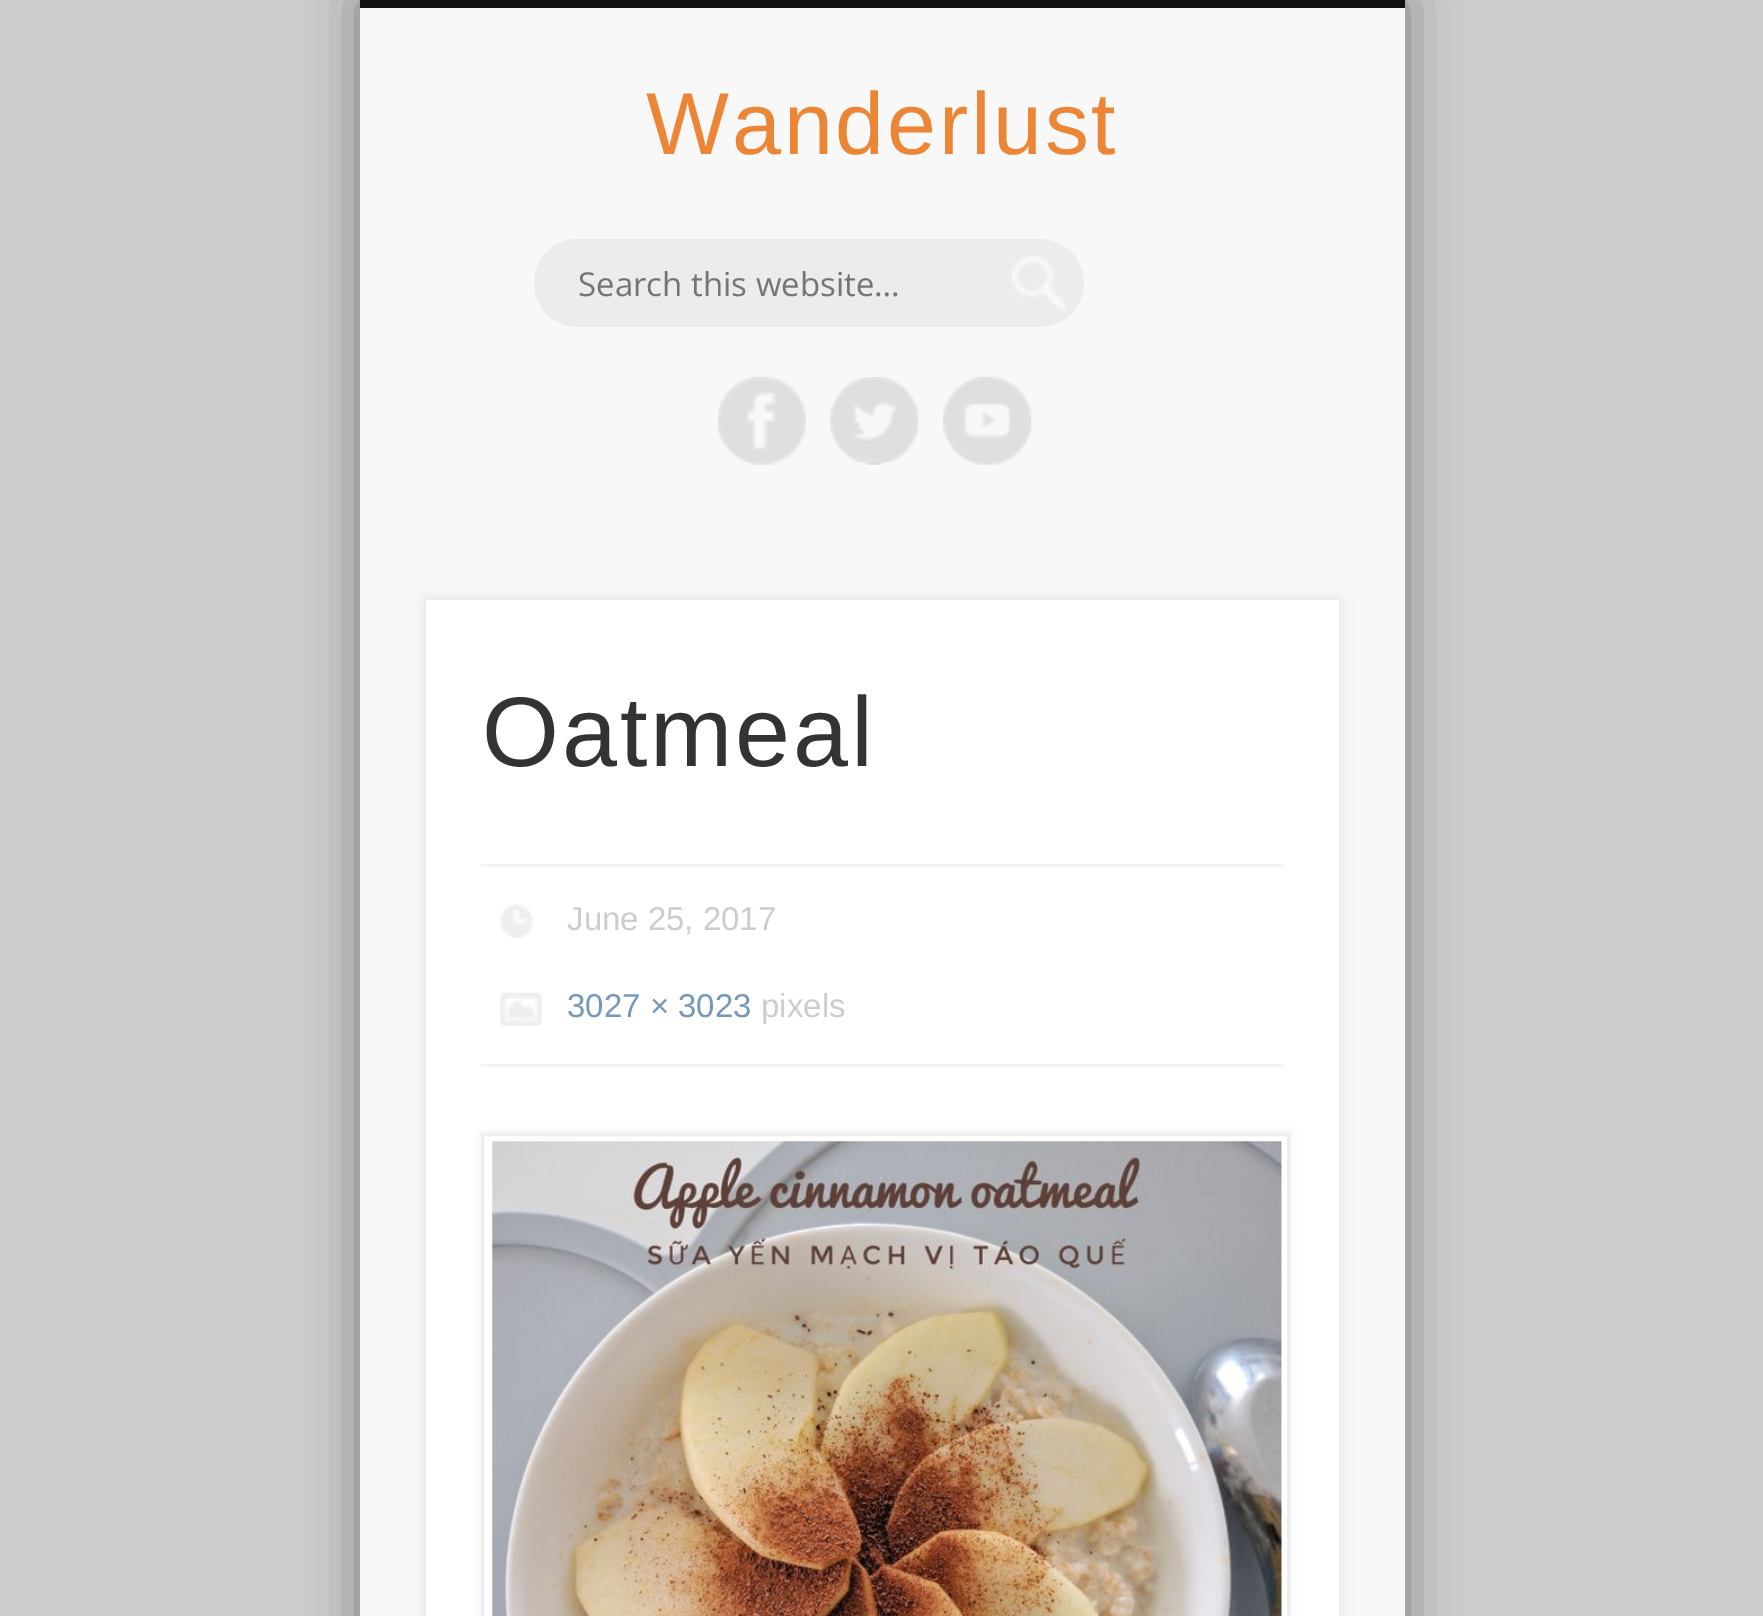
%!PS-Adobe-3.0
%%BoundingBox: 0 0 1763 1616
%%LanguageLevel: 3
%%Pages: 1
%%EndComments
%%BeginProlog
/m { moveto } bind def
/l { lineto } bind def
/h { closepath } bind def
/f { fill } bind def
/S { stroke } bind def
/q { gsave } bind def
/Q { grestore } bind def
/w { setlinewidth } bind def
/fn { [ exch dup neg 0 0 3 -1 roll 0 0 ] selectfont } def
/tx { moveto show } def
/bx { rectfill } def
/al { dup .setfillconstantalpha .setstrokeconstantalpha } def
/rr { 5 dict begin { /r /h /w /y /x } { exch def } forall
  x r add y moveto x w add y 2 copy h add r arct x w add y h add x 1 index r arct
  x y h add x y r arct x y 2 copy exch w add exch r arct closepath end } def
/sh { 12 dict begin { /a /b /q /h /w /y /x } { exch def } forall gsave /was 0 def
  9 -2 -9 { dup b mul 4 div /e exch def 1 sub .425 mul 2.718 exch exp 1 add a .99 .min exch div /now exch def
    1 1 now sub 1 was sub div sub al /was now def
    w h .min e 2 mul add 0 gt { x e sub y e sub w e 2 mul add h e 2 mul add
      q e add b .6 mul add w h .min 2 div e add .min 0 .max rr fill } if } for grestore end } def
/im { 5 dict begin { /h /w /y /x /name } { exch def } forall
  gsave x y translate w h scale
  w h 8 [w 0 0 h 0 0] name (r) file false 3 colorimage grestore end } def
%%EndProlog
%%BeginSetup
<< /PageSize [1763 1616] /PageUsesTransparency true >> setpagedevice
%%EndSetup
%%Page: 1 1
0 .pushpdf14devicefilter
0 1616 translate 1 -1 scale
4 setmiterlimit
0.8 setgray
0 0 1763 1616 bx
0 setgray
360 0 1045 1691 0 25 0.4 sh
0.973 setgray
360 8 1045 1608 bx
0.067 setgray
360 0 1045 8 bx
/LiberationSans-Regular 88 fn
0.929 0.522 0.212 setrgbcolor
646 154 m 2.75 0 (Wanderlust) ashow
0.925 setgray
534 239 550 88 44 rr f
(image0.raw) 1012 256 55 55 im
/OpenSans-Regular 33 fn
0.459 setgray
(Search this website…) 578 296 tx
(image1.raw) 718 376 88 89 im
(image2.raw) 830 377 89 88 im
(image3.raw) 943 376 89 89 im
0 setgray
426 600 913 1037 0 7 0.1 sh
1 setgray
426 600 913 1016 bx
/LiberationSans-Regular 99 fn
0.2 setgray
482 766 m 2.75 0 (Oatmeal) ashow
0.957 setgray
481 864 803 3 bx
481 1064 803 3 bx
(image4.raw) 500 904 34 34 im
/LiberationSans-Regular 33 fn
0.8 setgray
(June 25, 2017) 567 930 tx
(image5.raw) 500 992 42 34 im
0.459 0.592 0.725 setrgbcolor
(3027 × 3023) 567 1017 tx
0.8 setgray
(pixels) 761 1017 tx
0.933 setgray
481 1133 809 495 0 4 1 sh
1 setgray
482.5 1134.5 m 1288.5 1134.5 l 1288.5 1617.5 l 482.5 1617.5 l h q f Q
0.933 setgray
3 w
S
(image6.raw) 492 1141 790 475 im
.poppdf14devicefilter showpage
%%EOF
